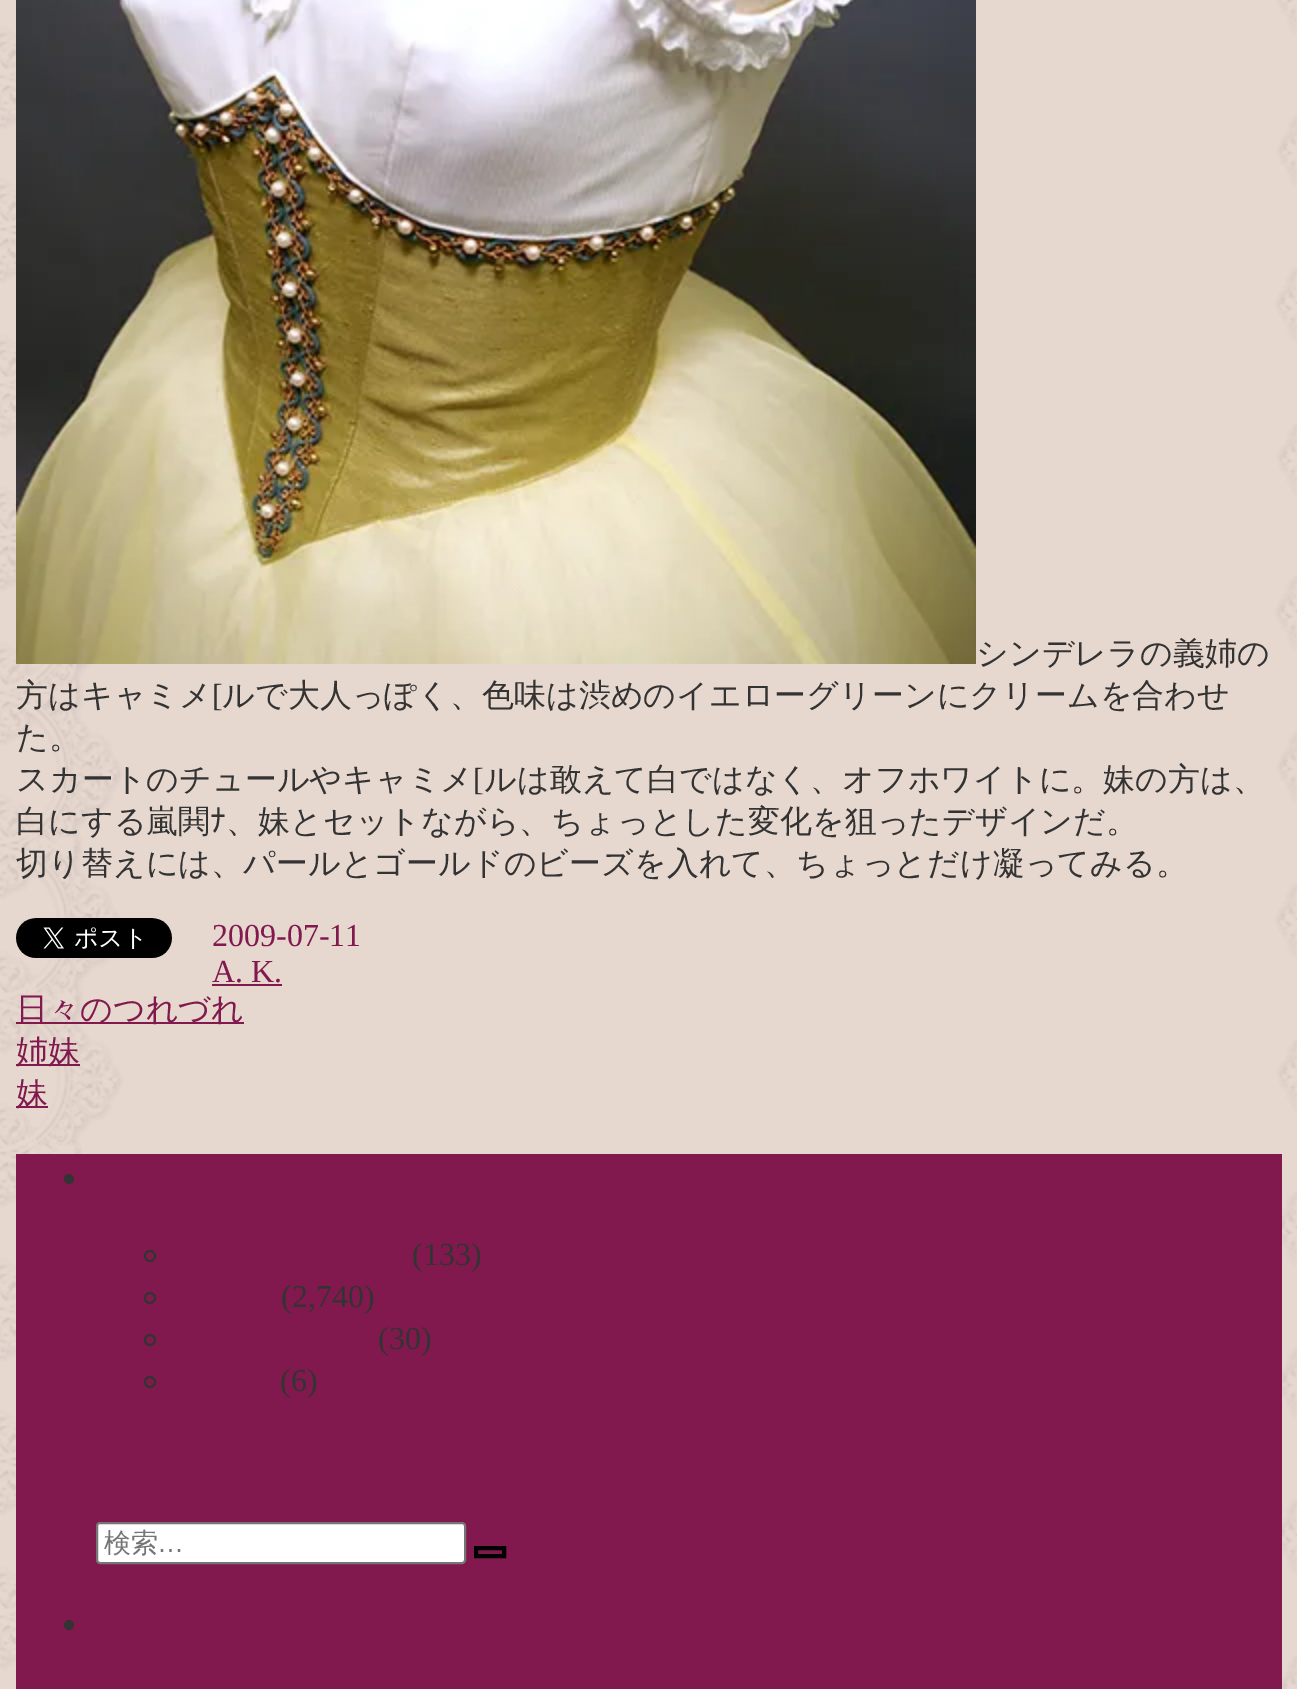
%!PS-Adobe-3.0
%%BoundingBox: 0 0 1297 1689
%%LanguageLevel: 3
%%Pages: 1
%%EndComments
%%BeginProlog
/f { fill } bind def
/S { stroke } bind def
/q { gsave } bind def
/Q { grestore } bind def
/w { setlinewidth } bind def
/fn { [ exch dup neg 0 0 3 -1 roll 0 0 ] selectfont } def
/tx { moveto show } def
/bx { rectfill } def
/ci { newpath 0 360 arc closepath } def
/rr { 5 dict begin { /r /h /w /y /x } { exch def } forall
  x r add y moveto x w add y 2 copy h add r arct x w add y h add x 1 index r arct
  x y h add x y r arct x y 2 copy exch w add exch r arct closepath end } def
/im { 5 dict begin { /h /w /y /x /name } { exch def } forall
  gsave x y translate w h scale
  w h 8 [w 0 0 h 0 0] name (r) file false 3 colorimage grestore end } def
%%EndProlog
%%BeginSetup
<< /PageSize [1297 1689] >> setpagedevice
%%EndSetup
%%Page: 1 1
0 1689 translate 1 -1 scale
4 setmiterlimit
1 setgray
0 0 1297 1689 bx
(image0.raw) 0 0 1297 1689 im
(image1.raw) 16 0 960 664 im
/WenQuanYiZenHei-Medium 32 fn
0.2 setgray
(シンデレラの義姉の) 976 664 tx
(方はキャミメ) 16 706 tx
/LiberationSerif-Regular 32 fn
([) 212 706 tx
/WenQuanYiZenHei-Medium 32 fn
(ルで大人っぽく、色味は渋めのイエローグリーンにクリームを合わせ) 222 706 tx
(た。) 16 748 tx
(スカートのチュールやキャミメ) 16 790 tx
/LiberationSerif-Regular 32 fn
([) 473 790 tx
/WenQuanYiZenHei-Medium 32 fn
(ルは敢えて白ではなく、オフホワイトに。妹の方は、) 484 790 tx
(白にする嵐閧) 16 832 tx
/IPAPGothic-Regular 32 fn
(ﾅ) 210 832 tx
/WenQuanYiZenHei-Medium 32 fn
(、妹とセットながら、ちょっとした変化を狙ったデザインだ。) 226 832 tx
(切り替えには、パールとゴールドのビーズを入れて、ちょっとだけ凝ってみる。) 16 874 tx
(image2.raw) 16 918 156 40 im
/LiberationSerif-Regular 32 fn
0.51 0.098 0.306 setrgbcolor
(2009-07-11) 212 946 tx
(A. K.) 212 982 tx
212 984 70 2 bx
16 1022 228 2 bx
/WenQuanYiZenHei-Medium 32 fn
(日々のつれづれ) 16 1020 tx
16 1064 64 2 bx
(姉妹) 16 1062 tx
16 1106 32 2 bx
(妹) 16 1104 tx
16 1154 1266 535 bx
0.2 setgray
69 1179 5 ci f
2 w
150 1256 5 ci S
/LiberationSerif-Regular 32 fn
(\(133\)) 412 1265 tx
150 1298 5 ci S
(\(2,740\)) 281 1307 tx
150 1340 5 ci S
(\(30\)) 378 1349 tx
150 1382 5 ci S
(\(6\)) 280 1391 tx
1 setgray
97 1523 368 40 3 rr q f Q
0.463 setgray
S
/WenQuanYiZenHei-Medium 27 fn
0.459 setgray
(検索) 104 1552 tx
/LiberationSans-Regular 27 fn
(…) 157 1552 tx
0 setgray
4 w
476 1548 28 8 rectstroke
0.2 setgray
69 1625 5 ci f
showpage
%%EOF
